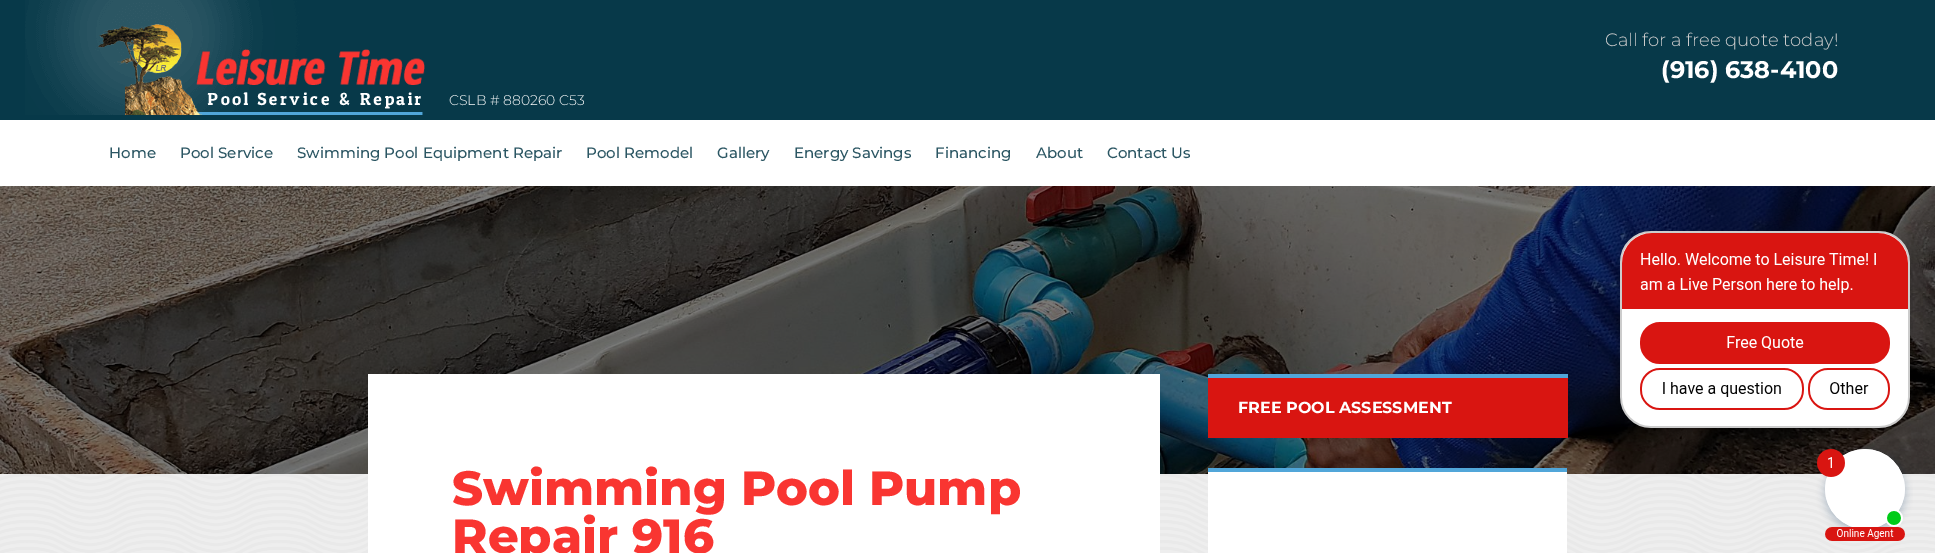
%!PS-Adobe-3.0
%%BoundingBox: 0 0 1935 553
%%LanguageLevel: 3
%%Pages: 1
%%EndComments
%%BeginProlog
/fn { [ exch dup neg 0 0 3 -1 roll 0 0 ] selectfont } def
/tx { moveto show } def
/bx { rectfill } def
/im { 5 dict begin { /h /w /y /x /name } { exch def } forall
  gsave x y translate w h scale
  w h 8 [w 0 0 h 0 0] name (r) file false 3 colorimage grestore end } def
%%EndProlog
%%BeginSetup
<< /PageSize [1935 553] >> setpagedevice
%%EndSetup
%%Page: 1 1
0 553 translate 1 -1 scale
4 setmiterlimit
1 setgray
0 0 1935 553 bx
(image0.raw) 0 474 1935 79 im
0.027 0.224 0.286 setrgbcolor
0 0 1935 120 bx
/Montserrat-Light 18 fn
0.8 setgray
(Call for a free quote today!) 1605 46 tx
/Montserrat-Bold 24 fn
1 setgray
(\(916\) 638-4100) 1661 78 tx
(image1.raw) 25 0 400 115 im
/Montserrat-Light 14 fn
(CSLB # 880260 C53) 449 105 tx
/Montserrat-Medium 15 fn
0.169 0.337 0.388 setrgbcolor
(Home) 109 158 tx
(Pool Service) 180 158 tx
(Swimming Pool Equipment Repair) 297 158 tx
(Pool Remodel) 586 158 tx
(Gallery) 717 158 tx
(Energy Savings) 794 158 tx
(Financing) 935 158 tx
(About) 1036 158 tx
(Contact Us) 1107 158 tx
(image2.raw) 0 186 1935 288 im
0.318 0.651 0.851 setrgbcolor
1208 374 360 4 bx
0.851 0.082 0.067 setrgbcolor
1208 378 360 60 bx
/Montserrat-Bold 16 fn
1 setgray
(FREE POOL ASSESSMENT) 1238 413 tx
1208 472 359 81 bx
0.318 0.651 0.851 setrgbcolor
1208 468 359 4 bx
1 setgray
368 374 792 179 bx
/Montserrat-ExtraBold 48 fn
0.976 0.208 0.192 setrgbcolor
(Swimming Pool Pump) 452 505 tx
(Repair 916) 452 553 tx
(image3.raw) 1616 231 297 310 im
showpage
%%EOF
